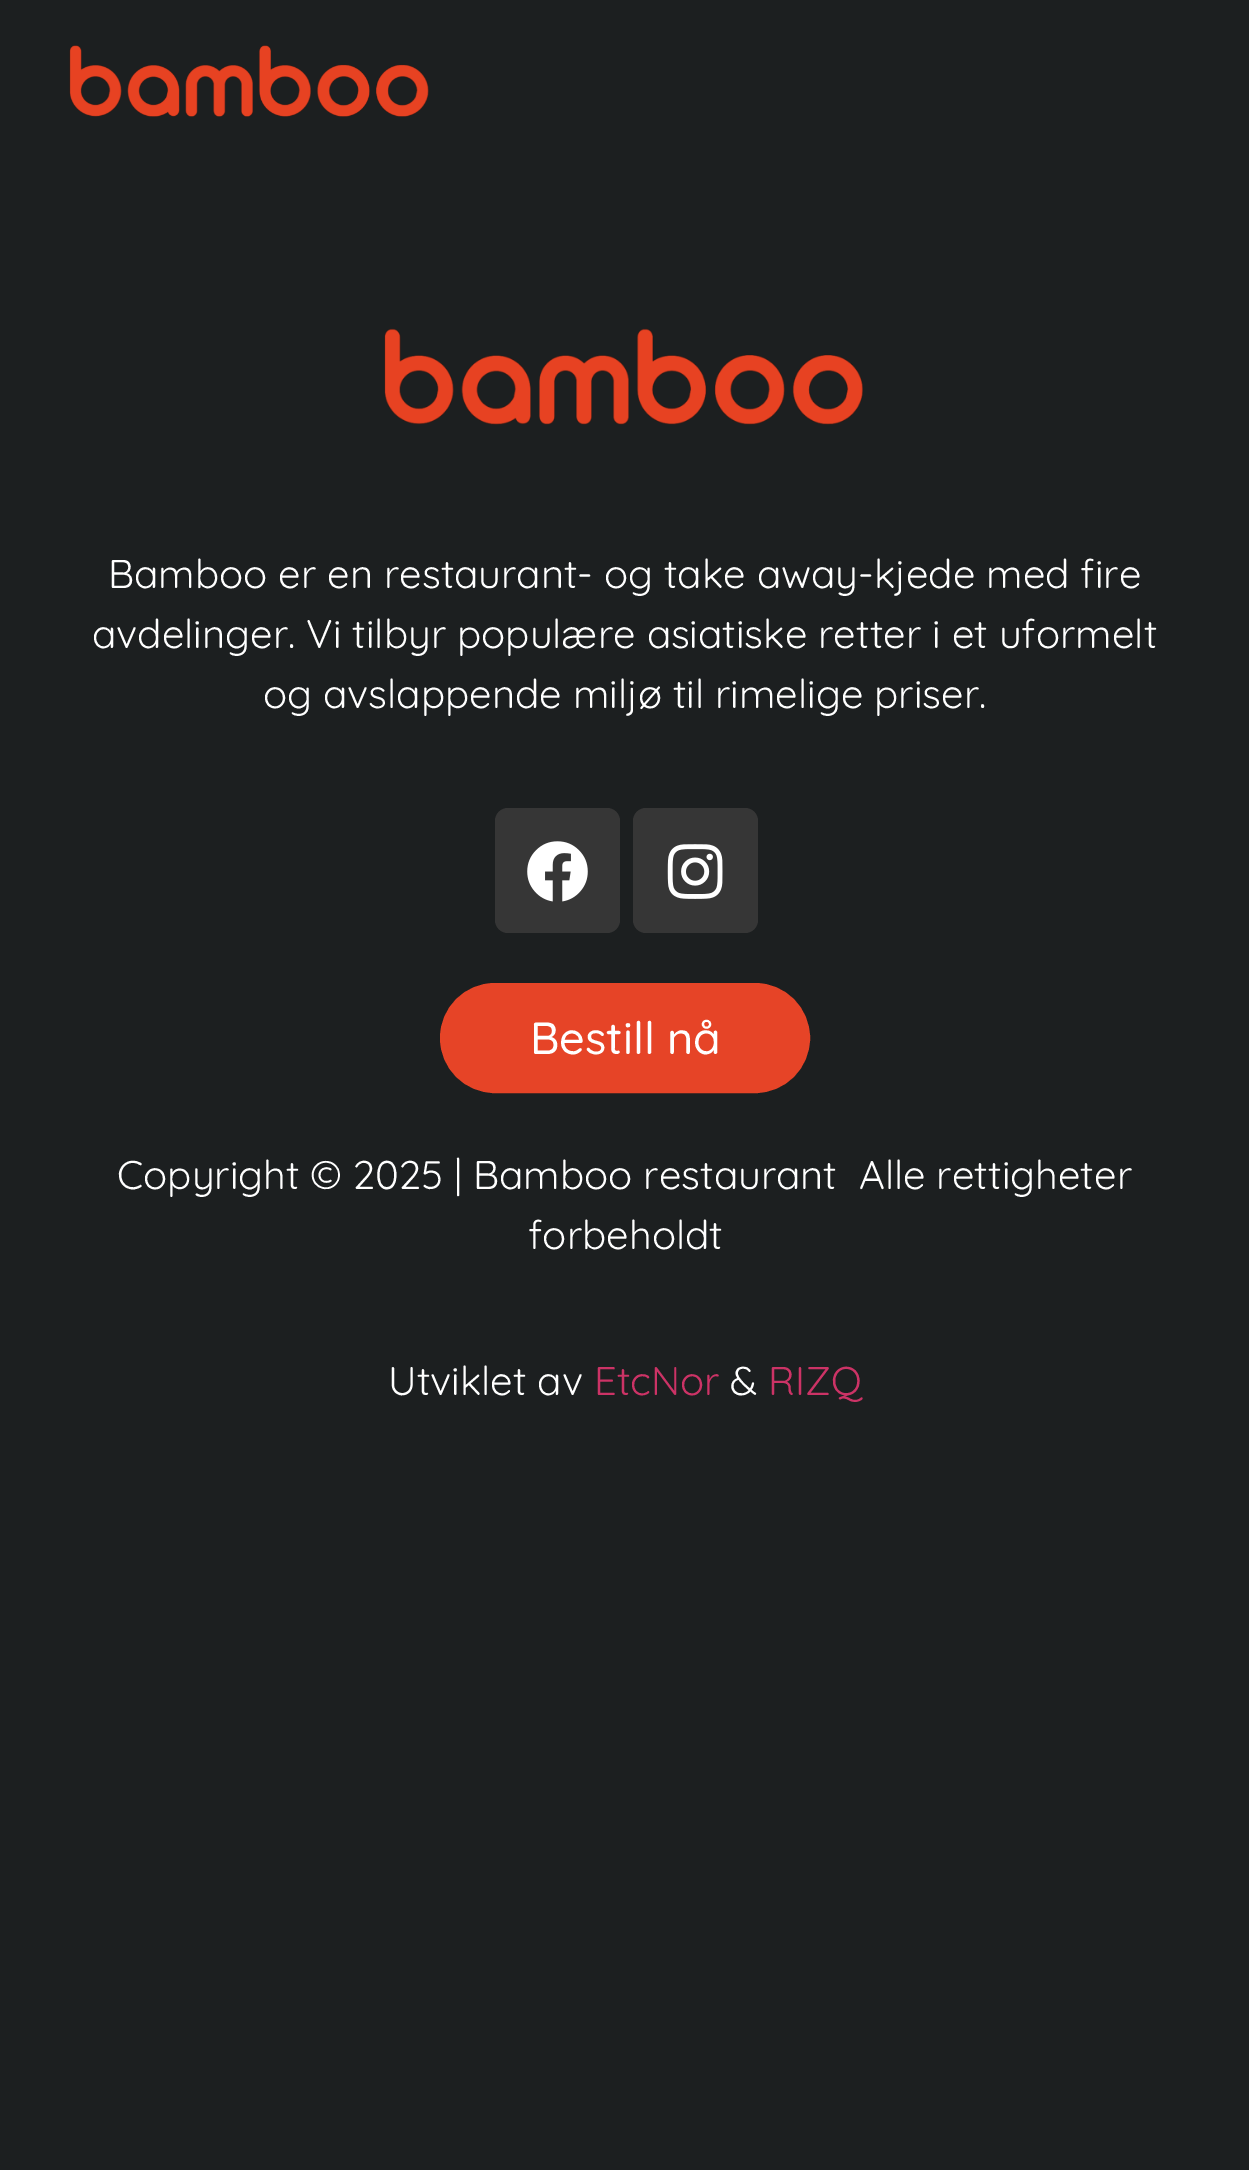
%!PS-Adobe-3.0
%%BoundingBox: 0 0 1249 2170
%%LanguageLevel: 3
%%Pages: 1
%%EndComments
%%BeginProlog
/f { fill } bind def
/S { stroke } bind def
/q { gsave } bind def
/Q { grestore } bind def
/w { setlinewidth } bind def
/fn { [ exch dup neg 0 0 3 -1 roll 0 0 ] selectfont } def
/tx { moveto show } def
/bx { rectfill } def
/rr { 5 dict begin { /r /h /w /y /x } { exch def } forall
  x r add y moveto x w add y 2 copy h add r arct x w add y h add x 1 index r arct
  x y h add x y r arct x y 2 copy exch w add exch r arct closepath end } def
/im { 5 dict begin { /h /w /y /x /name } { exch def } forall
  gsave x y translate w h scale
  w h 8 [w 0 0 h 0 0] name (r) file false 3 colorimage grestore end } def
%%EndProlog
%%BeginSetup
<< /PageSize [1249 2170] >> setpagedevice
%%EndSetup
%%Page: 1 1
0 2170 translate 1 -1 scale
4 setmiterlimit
0.11 0.122 0.125 setrgbcolor
0 0 1249 2170 bx
(image0.raw) 69 45 360 72 im
(image1.raw) 384 328 479 97 im
/Quicksand-Regular 40 fn
1 setgray
(Bamboo er en restaurant- og take away-kjede med fire) 108 588 tx
(avdelinger. Vi tilbyr populære asiatiske retter i et uformelt) 92 648 tx
(og avslappende miljø til rimelige priser.) 263 708 tx
0.212 setgray
495 808 125 125 13 rr f
(image2.raw) 527 841 61 61 im
633 808 125 125 13 rr f
(image3.raw) 667 844 56 55 im
0.902 0.267 0.153 setrgbcolor
441.5 984.5 367 107 53.5 rr q f Q
3 w
S
/Quicksand-Medium 45 fn
1 setgray
(Bestill nå) 530 1054 tx
/Quicksand-Regular 40 fn
(Copyright © 2025 | Bamboo restaurant  Alle rettigheter) 117 1189 tx
(forbeholdt) 528 1249 tx
(Utviklet av) 388 1395 tx
0.8 0.2 0.4 setrgbcolor
(EtcNor) 594 1395 tx
1 setgray
(&) 730 1395 tx
0.8 0.2 0.4 setrgbcolor
(RIZQ) 768 1395 tx
showpage
%%EOF
